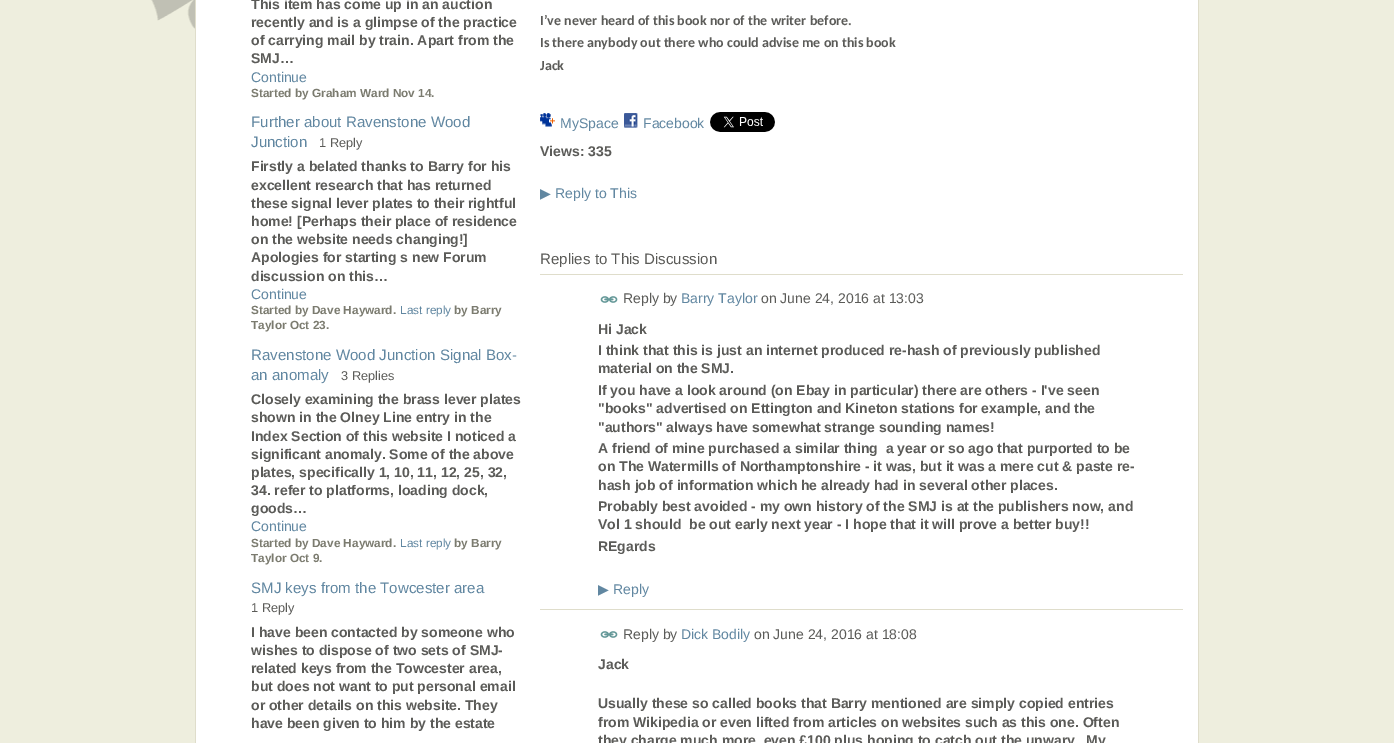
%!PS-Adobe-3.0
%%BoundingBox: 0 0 1394 743
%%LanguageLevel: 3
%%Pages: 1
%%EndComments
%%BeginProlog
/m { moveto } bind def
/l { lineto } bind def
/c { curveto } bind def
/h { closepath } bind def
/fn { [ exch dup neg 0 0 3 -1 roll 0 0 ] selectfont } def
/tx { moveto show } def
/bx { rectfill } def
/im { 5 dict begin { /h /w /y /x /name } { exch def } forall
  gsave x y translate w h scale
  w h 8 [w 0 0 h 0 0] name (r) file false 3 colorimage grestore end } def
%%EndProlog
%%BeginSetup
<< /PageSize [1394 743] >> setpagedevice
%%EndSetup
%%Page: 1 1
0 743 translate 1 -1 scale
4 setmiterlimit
0.933 0.933 0.871 setrgbcolor
0 0 1394 743 bx
(image0.raw) 151 0 44 29 im
1 setgray
196 0 1002 743 bx
0.875 0.867 0.796 setrgbcolor
195 -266 m 1199 -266 l 1199 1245 l 1199 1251 1195 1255 1189 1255 c 205 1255 l 199 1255 195 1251 195 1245 c h 196 -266 m 1198 -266 l 1198 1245 l 1198 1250 1194 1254 1189 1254 c 205 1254 l 200 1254 196 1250 196 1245 c h eofill
/LiberationSans-Bold 14 fn
0.357 0.357 0.345 setrgbcolor
(This item has come up in an auction) 251 9 tx
(recently and is a glimpse of the practice) 251 27 tx
(of carrying mail by train. Apart from the) 251 45 tx
(SMJ…) 251 63 tx
/LiberationSans-Regular 14 fn
0.38 0.529 0.631 setrgbcolor
(Continue) 251 82 tx
/LiberationSans-Bold 11.8 fn
0.482 0.482 0.435 setrgbcolor
(Started by Graham Ward Nov 14.) 251 97 tx
/LiberationSans-Regular 15.1 fn
0.38 0.529 0.631 setrgbcolor
(Further about Ravenstone Wood) 251 127 tx
(Junction) 251 147 tx
/LiberationSans-Regular 12.75 fn
0.357 0.357 0.345 setrgbcolor
(1 Reply) 319 147 tx
/LiberationSans-Bold 14 fn
(Firstly a belated thanks to Barry for his) 251 171 tx
(excellent research that has returned) 251 190 tx
(these signal lever plates to their rightful) 251 208 tx
(home! [Perhaps their place of residence) 251 226 tx
(on the website needs changing!]) 251 244 tx
(Apologies for starting s new Forum) 251 262 tx
(discussion on this…) 251 281 tx
/LiberationSans-Regular 14 fn
0.38 0.529 0.631 setrgbcolor
(Continue) 251 299 tx
/LiberationSans-Bold 11.8 fn
0.482 0.482 0.435 setrgbcolor
(Started by Dave Hayward.) 251 314 tx
/LiberationSans-Regular 11.8 fn
0.38 0.529 0.631 setrgbcolor
(Last reply) 400 314 tx
/LiberationSans-Bold 11.8 fn
0.482 0.482 0.435 setrgbcolor
(by Barry) 454 314 tx
(Taylor Oct 23.) 251 329 tx
/LiberationSans-Regular 15.1 fn
0.38 0.529 0.631 setrgbcolor
(Ravenstone Wood Junction Signal Box-) 251 360 tx
(an anomaly) 251 380 tx
/LiberationSans-Regular 12.75 fn
0.357 0.357 0.345 setrgbcolor
(3 Replies) 341 380 tx
/LiberationSans-Bold 14 fn
(Closely examining the brass lever plates) 251 404 tx
(shown in the Olney Line entry in the) 251 422 tx
(Index Section of this website I noticed a) 251 441 tx
(significant anomaly. Some of the above) 251 459 tx
(plates, specifically 1, 10, 11, 12, 25, 32,) 251 477 tx
(34. refer to platforms, loading dock,) 251 495 tx
(goods…) 251 513 tx
/LiberationSans-Regular 14 fn
0.38 0.529 0.631 setrgbcolor
(Continue) 251 531 tx
/LiberationSans-Bold 11.8 fn
0.482 0.482 0.435 setrgbcolor
(Started by Dave Hayward.) 251 547 tx
/LiberationSans-Regular 11.8 fn
0.38 0.529 0.631 setrgbcolor
(Last reply) 400 547 tx
/LiberationSans-Bold 11.8 fn
0.482 0.482 0.435 setrgbcolor
(by Barry) 454 547 tx
(Taylor Oct 9.) 251 562 tx
/LiberationSans-Regular 15.1 fn
0.38 0.529 0.631 setrgbcolor
(SMJ keys from the Towcester area) 251 593 tx
/LiberationSans-Regular 12.75 fn
0.357 0.357 0.345 setrgbcolor
(1 Reply) 251 612 tx
/LiberationSans-Bold 14 fn
(I have been contacted by someone who) 251 637 tx
(wishes to dispose of two sets of SMJ-) 251 655 tx
(related keys from the Towcester area,) 251 673 tx
(but does not want to put personal email) 251 691 tx
(or other details on this website. They) 251 710 tx
(have been given to him by the estate) 251 728 tx
/Carlito-Bold 14 fn
(I’ve never heard of this book nor of the writer before.) 540 25 tx
(Is there anybody out there who could advise me on this book) 540 47 tx
(Jack) 540 70 tx
(image1.raw) 540 113 15 14 im
/LiberationSans-Regular 14 fn
0.38 0.529 0.631 setrgbcolor
(MySpace) 560 128 tx
(image2.raw) 624 113 14 15 im
(Facebook) 643 128 tx
(image3.raw) 710 112 65 20 im
/LiberationSans-Bold 14 fn
0.357 0.357 0.345 setrgbcolor
(Views: 335) 540 156 tx
/DejaVuSans-Regular 14 fn
0.38 0.529 0.631 setrgbcolor
(▶) 540 198 tx
/LiberationSans-Regular 14 fn
(Reply to This) 555 198 tx
/LiberationSans-Regular 15.1 fn
0.357 0.357 0.345 setrgbcolor
(Replies to This Discussion) 540 264 tx
0.875 0.867 0.796 setrgbcolor
540 274 643 1 bx
(image4.raw) 600 296 18 7 im
/LiberationSans-Regular 14 fn
0.357 0.357 0.345 setrgbcolor
(Reply by) 623 303 tx
0.38 0.529 0.631 setrgbcolor
(Barry Taylor) 681 303 tx
0.357 0.357 0.345 setrgbcolor
(on June 24, 2016 at 13:03) 761 303 tx
/LiberationSans-Bold 14 fn
(Hi Jack) 598 334 tx
(I think that this is just an internet produced re-hash of previously published) 598 355 tx
(material on the SMJ.) 598 373 tx
(If you have a look around \(on Ebay in particular\) there are others - I've seen) 598 395 tx
("books" advertised on Ettington and Kineton stations for example, and the) 598 413 tx
("authors" always have somewhat strange sounding names!) 598 432 tx
(A friend of mine purchased a similar thing  a year or so ago that purported to be) 598 453 tx
(on The Watermills of Northamptonshire - it was, but it was a mere cut & paste re-) 598 471 tx
(hash job of information which he already had in several other places.) 598 490 tx
(Probably best avoided - my own history of the SMJ is at the publishers now, and) 598 511 tx
(Vol 1 should  be out early next year - I hope that it will prove a better buy!!) 598 529 tx
(REgards) 598 551 tx
/DejaVuSans-Regular 14 fn
0.38 0.529 0.631 setrgbcolor
(▶) 598 594 tx
/LiberationSans-Regular 14 fn
(Reply) 613 594 tx
0.875 0.867 0.796 setrgbcolor
540 609 643 1 bx
(image4.raw) 600 631 18 7 im
0.357 0.357 0.345 setrgbcolor
(Reply by) 623 639 tx
0.38 0.529 0.631 setrgbcolor
(Dick Bodily) 681 639 tx
0.357 0.357 0.345 setrgbcolor
(on June 24, 2016 at 18:08) 754 639 tx
/LiberationSans-Bold 14 fn
(Jack) 598 669 tx
(Usually these so called books that Barry mentioned are simply copied entries) 598 708 tx
(from Wikipedia or even lifted from articles on websites such as this one. Often) 598 727 tx
(they charge much more, even £100 plus hoping to catch out the unwary.  My) 598 745 tx
showpage
%%EOF
